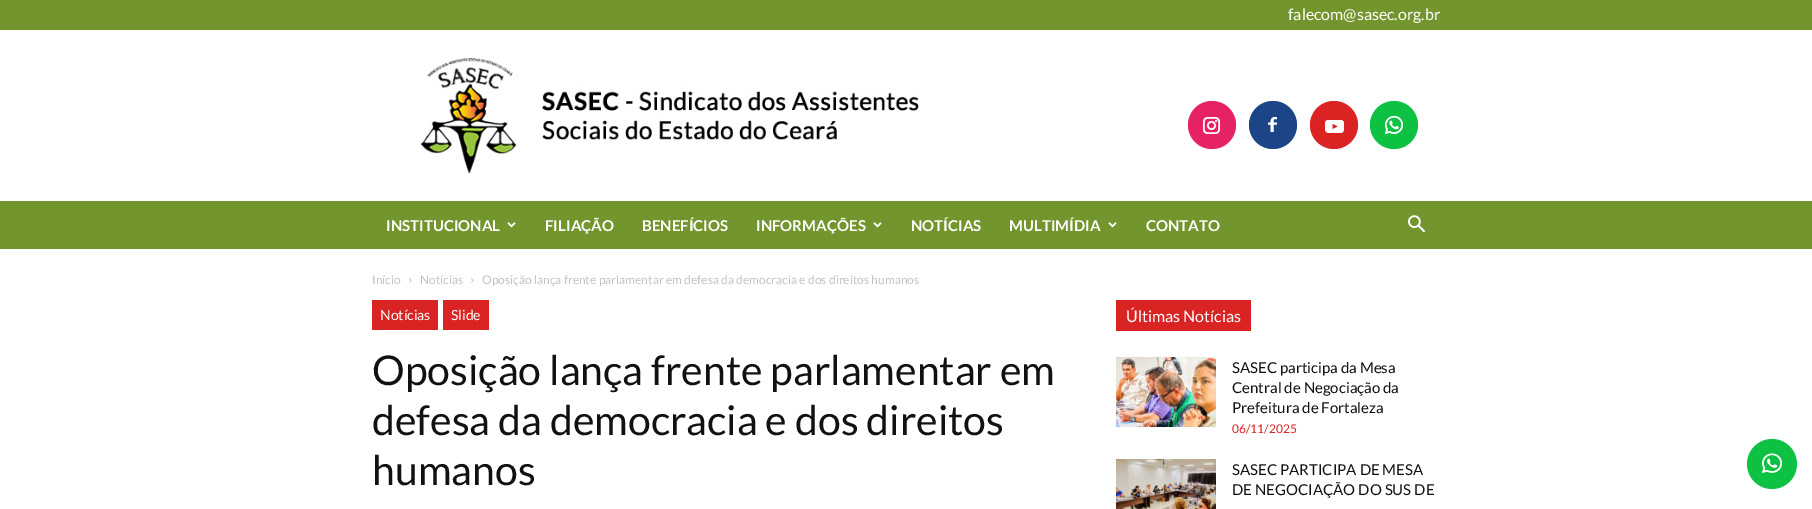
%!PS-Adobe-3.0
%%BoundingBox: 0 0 1812 509
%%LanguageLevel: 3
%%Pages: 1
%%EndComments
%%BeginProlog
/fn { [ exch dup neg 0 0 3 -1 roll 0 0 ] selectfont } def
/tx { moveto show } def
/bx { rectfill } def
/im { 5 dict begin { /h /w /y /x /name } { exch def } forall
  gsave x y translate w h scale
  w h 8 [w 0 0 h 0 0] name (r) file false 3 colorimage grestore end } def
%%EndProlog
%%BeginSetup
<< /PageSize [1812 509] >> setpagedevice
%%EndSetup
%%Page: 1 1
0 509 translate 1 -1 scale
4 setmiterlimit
1 setgray
0 0 1812 509 bx
0.451 0.584 0.176 setrgbcolor
0 0 1812 30 bx
/Lato-Regular 16 fn
1 setgray
(falecom@sasec.org.br) 1288 20 tx
(image0.raw) 421 58 498 115 im
(image1.raw) 1188 101 230 48 im
0.451 0.584 0.176 setrgbcolor
0 201 1812 48 bx
/Lato-Bold 15 fn
1 setgray
(INSTITUCIONAL) 386 231 tx
(image2.raw) 507 222 9 6 im
(FILIAÇÃO) 545 231 tx
(BENEFÍCIOS) 642 231 tx
(INFORMAÇÕES) 756 231 tx
(image2.raw) 873 222 9 6 im
(NOTÍCIAS) 911 231 tx
(MULTIMÍDIA) 1009 231 tx
(image2.raw) 1108 222 9 6 im
(CONTATO) 1146 231 tx
(image3.raw) 1408 215 17 18 im
/Lato-Regular 12 fn
0.765 setgray
(Início) 372 284 tx
(image4.raw) 409 278 3 5 im
(Notícias) 420 284 tx
(image4.raw) 471 278 3 5 im
(Oposição lança frente parlamentar em defesa da democracia e dos direitos humanos) 482 284 tx
0.855 0.141 0.137 setrgbcolor
372 300 66 30 bx
/Lato-Regular 14 fn
1 setgray
(Notícias) 380 320 tx
0.855 0.141 0.137 setrgbcolor
443 300 46 30 bx
1 setgray
(Slide) 451 320 tx
/Lato-Regular 41 fn
0.067 setgray
(Oposição lança frente parlamentar em) 372 385 tx
(defesa da democracia e dos direitos) 372 435 tx
(humanos) 372 485 tx
0.855 0.141 0.137 setrgbcolor
1116 300 135 31 bx
/Lato-Regular 16 fn
1 setgray
(Últimas Notícias) 1126 322 tx
(image5.raw) 1116 357 100 70 im
/Lato-Regular 15 fn
0.067 setgray
(SASEC participa da Mesa) 1232 373 tx
(Central de Negociação da) 1232 393 tx
(Prefeitura de Fortaleza) 1232 413 tx
/Lato-Regular 12 fn
0.851 0.141 0.133 setrgbcolor
(06/11/2025) 1232 433 tx
(image6.raw) 1116 459 100 50 im
/Lato-Regular 15 fn
0.067 setgray
(SASEC PARTICIPA DE MESA) 1232 475 tx
(DE NEGOCIAÇÃO DO SUS DE) 1232 495 tx
(image7.raw) 1747 439 50 50 im
showpage
%%EOF
